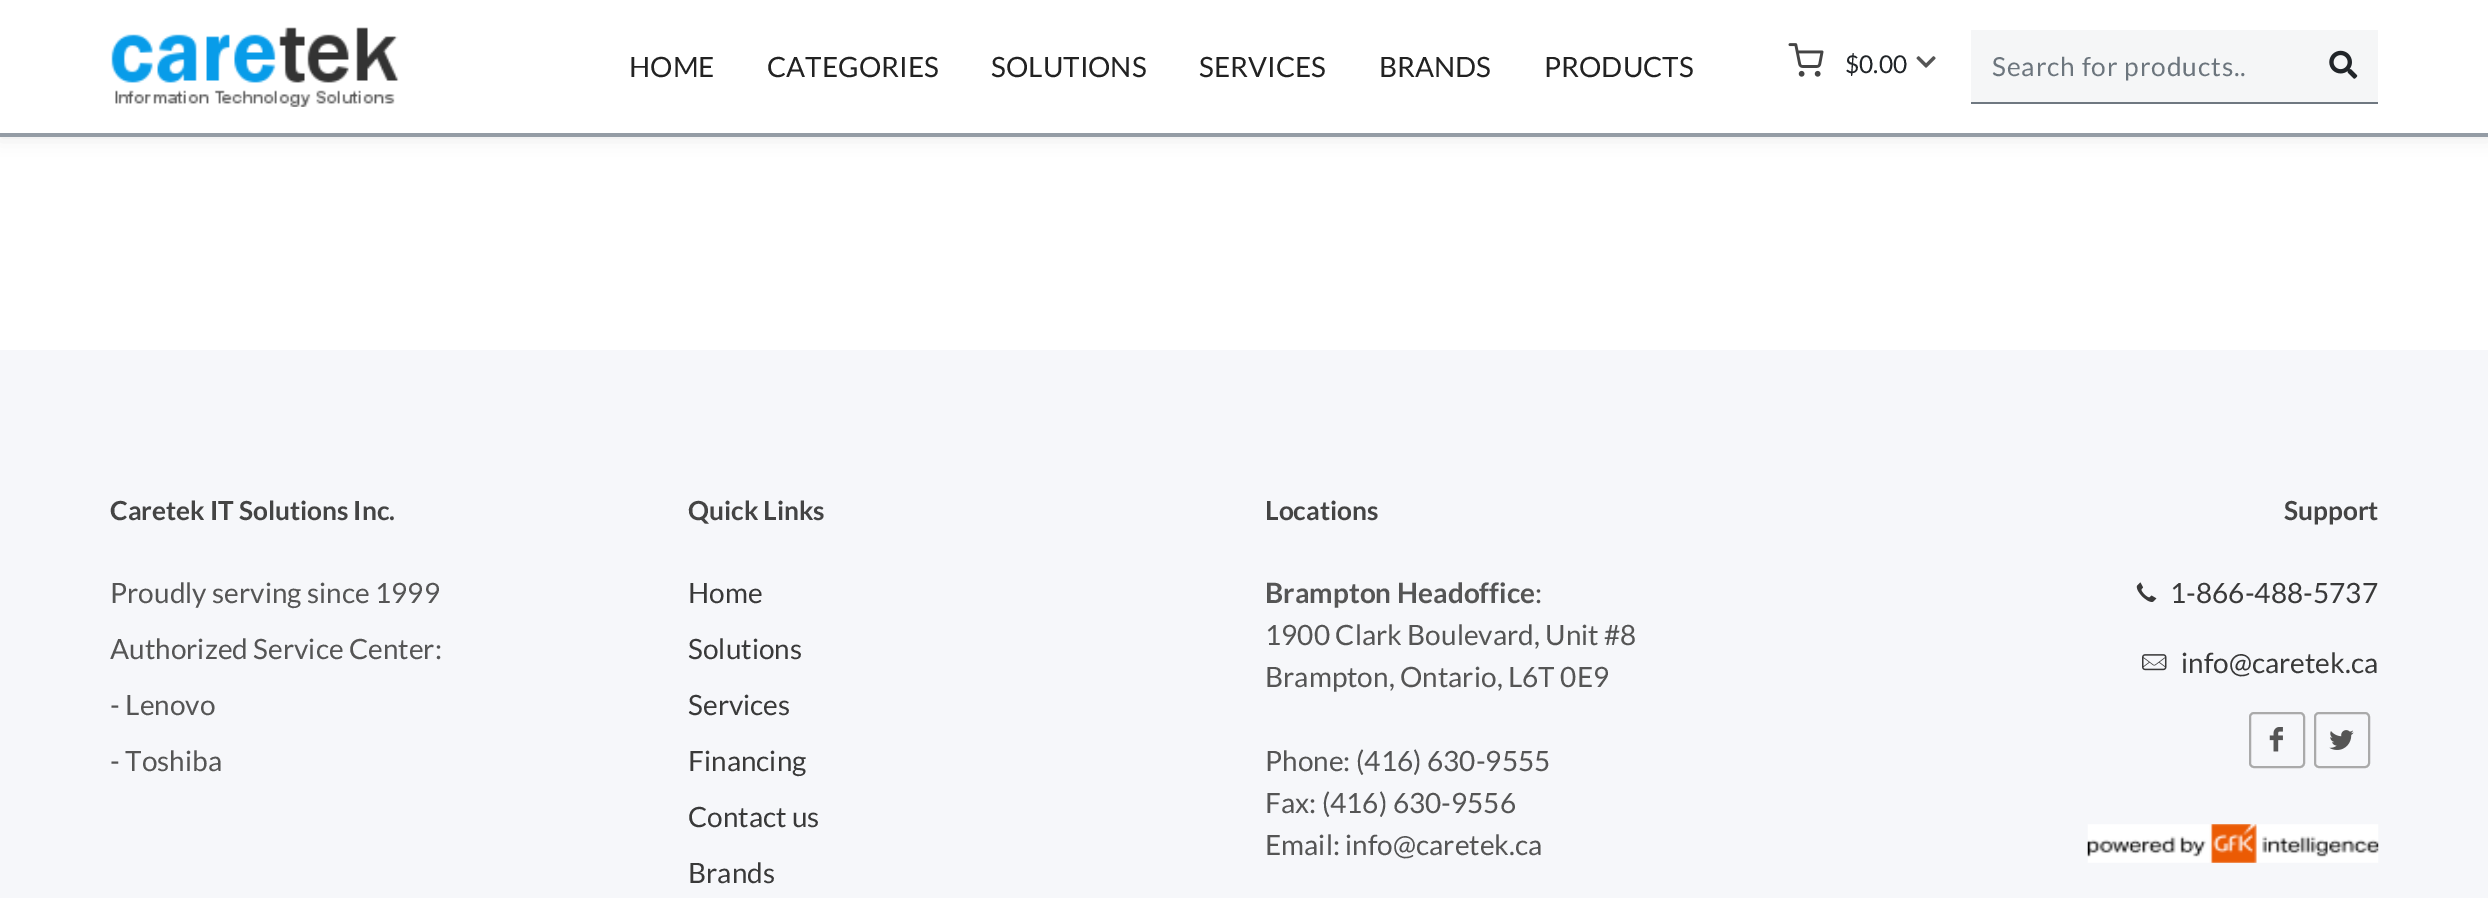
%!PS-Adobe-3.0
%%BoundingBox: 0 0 2488 898
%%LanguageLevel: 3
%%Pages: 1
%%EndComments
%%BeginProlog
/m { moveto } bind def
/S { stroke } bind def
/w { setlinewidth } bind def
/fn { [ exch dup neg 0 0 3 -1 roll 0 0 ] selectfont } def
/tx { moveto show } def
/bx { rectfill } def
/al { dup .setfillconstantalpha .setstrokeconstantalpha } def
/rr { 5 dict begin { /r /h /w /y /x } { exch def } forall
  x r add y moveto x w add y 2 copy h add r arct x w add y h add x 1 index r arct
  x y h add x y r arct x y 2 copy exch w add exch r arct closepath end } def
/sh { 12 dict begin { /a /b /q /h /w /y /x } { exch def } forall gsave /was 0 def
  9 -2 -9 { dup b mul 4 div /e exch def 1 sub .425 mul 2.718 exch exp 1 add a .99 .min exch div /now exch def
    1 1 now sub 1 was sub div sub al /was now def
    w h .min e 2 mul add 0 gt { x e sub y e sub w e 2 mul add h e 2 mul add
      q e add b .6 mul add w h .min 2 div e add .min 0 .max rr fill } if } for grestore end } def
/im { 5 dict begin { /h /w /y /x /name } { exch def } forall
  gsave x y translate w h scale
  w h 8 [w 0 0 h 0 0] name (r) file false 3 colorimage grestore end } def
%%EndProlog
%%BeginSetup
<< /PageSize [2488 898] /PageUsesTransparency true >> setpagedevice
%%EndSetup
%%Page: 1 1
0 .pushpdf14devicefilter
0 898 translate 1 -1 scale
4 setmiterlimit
1 setgray
0 0 2488 898 bx
0 setgray
0 0 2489 137 0 9 0.1 sh
1 setgray
0 0 2488 133 bx
0.58 0.612 0.647 setrgbcolor
0 133 2488 4 bx
(image0.raw) 111 27 288 80 im
/Lato-Regular 28 fn
0.133 setgray
(HOME) 629 77 tx
(CATEGORIES) 767 77 tx
(SOLUTIONS) 991 77 tx
(SERVICES) 1199 77 tx
(BRANDS) 1379 77 tx
(PRODUCTS) 1544 77 tx
(image1.raw) 1788 43 36 34 im
/Lato-Regular 24.5 fn
0.129 0.145 0.161 setrgbcolor
($0.00) 1845 73 tx
(image2.raw) 1916 56 20 12 im
0.961 0.965 0.969 setrgbcolor
1971 30 407 72 bx
0.435 0.471 0.506 setrgbcolor
1971 102 407 2 bx
/Lato-Regular 26.25 fn
0.424 0.459 0.49 setrgbcolor
1992 76 m 0.9 0 (Search for products..) ashow
(image3.raw) 2329 50 29 29 im
0.965 0.969 0.98 setrgbcolor
0 350 2488 548 bx
/Lato-Bold 26.25 fn
0.267 setgray
(Caretek IT Solutions Inc.) 110 520 tx
/Lato-Regular 28 fn
0.333 setgray
(Proudly serving since 1999) 110 603 tx
(Authorized Service Center:) 110 659 tx
(- Lenovo) 110 715 tx
(- Toshiba) 110 771 tx
/Lato-Bold 26.25 fn
0.267 setgray
(Quick Links) 688 520 tx
/Lato-Regular 28 fn
0.224 setgray
(Home) 688 603 tx
(Solutions) 688 659 tx
(Services) 688 715 tx
(Financing) 688 771 tx
(Contact us) 688 827 tx
(Brands) 688 883 tx
/Lato-Bold 26.25 fn
0.267 setgray
(Locations) 1265 520 tx
/Lato-Bold 28 fn
0.333 setgray
(Brampton Headoffice) 1265 603 tx
/Lato-Regular 28 fn
(:) 1535 603 tx
(1900 Clark Boulevard, Unit #8) 1265 645 tx
(Brampton, Ontario, L6T 0E9) 1265 687 tx
(Phone: \(416\) 630-9555) 1265 771 tx
(Fax: \(416\) 630-9556) 1265 813 tx
(Email: info@caretek.ca) 1265 855 tx
/Lato-Bold 26.25 fn
0.267 setgray
(Support) 2284 520 tx
(image4.raw) 2136 582 21 20 im
/Lato-Regular 28 fn
0.224 setgray
(1-866-488-5737) 2170 603 tx
(image5.raw) 2142 654 25 17 im
(info@caretek.ca) 2181 673 tx
0.667 setgray
2 w
2250 713 54 54 4 rr S
(image6.raw) 2269 727 14 25 im
2315 713 54 54 4 rr S
(image7.raw) 2329 730 25 20 im
(image8.raw) 2087 824 292 39 im
.poppdf14devicefilter showpage
%%EOF
